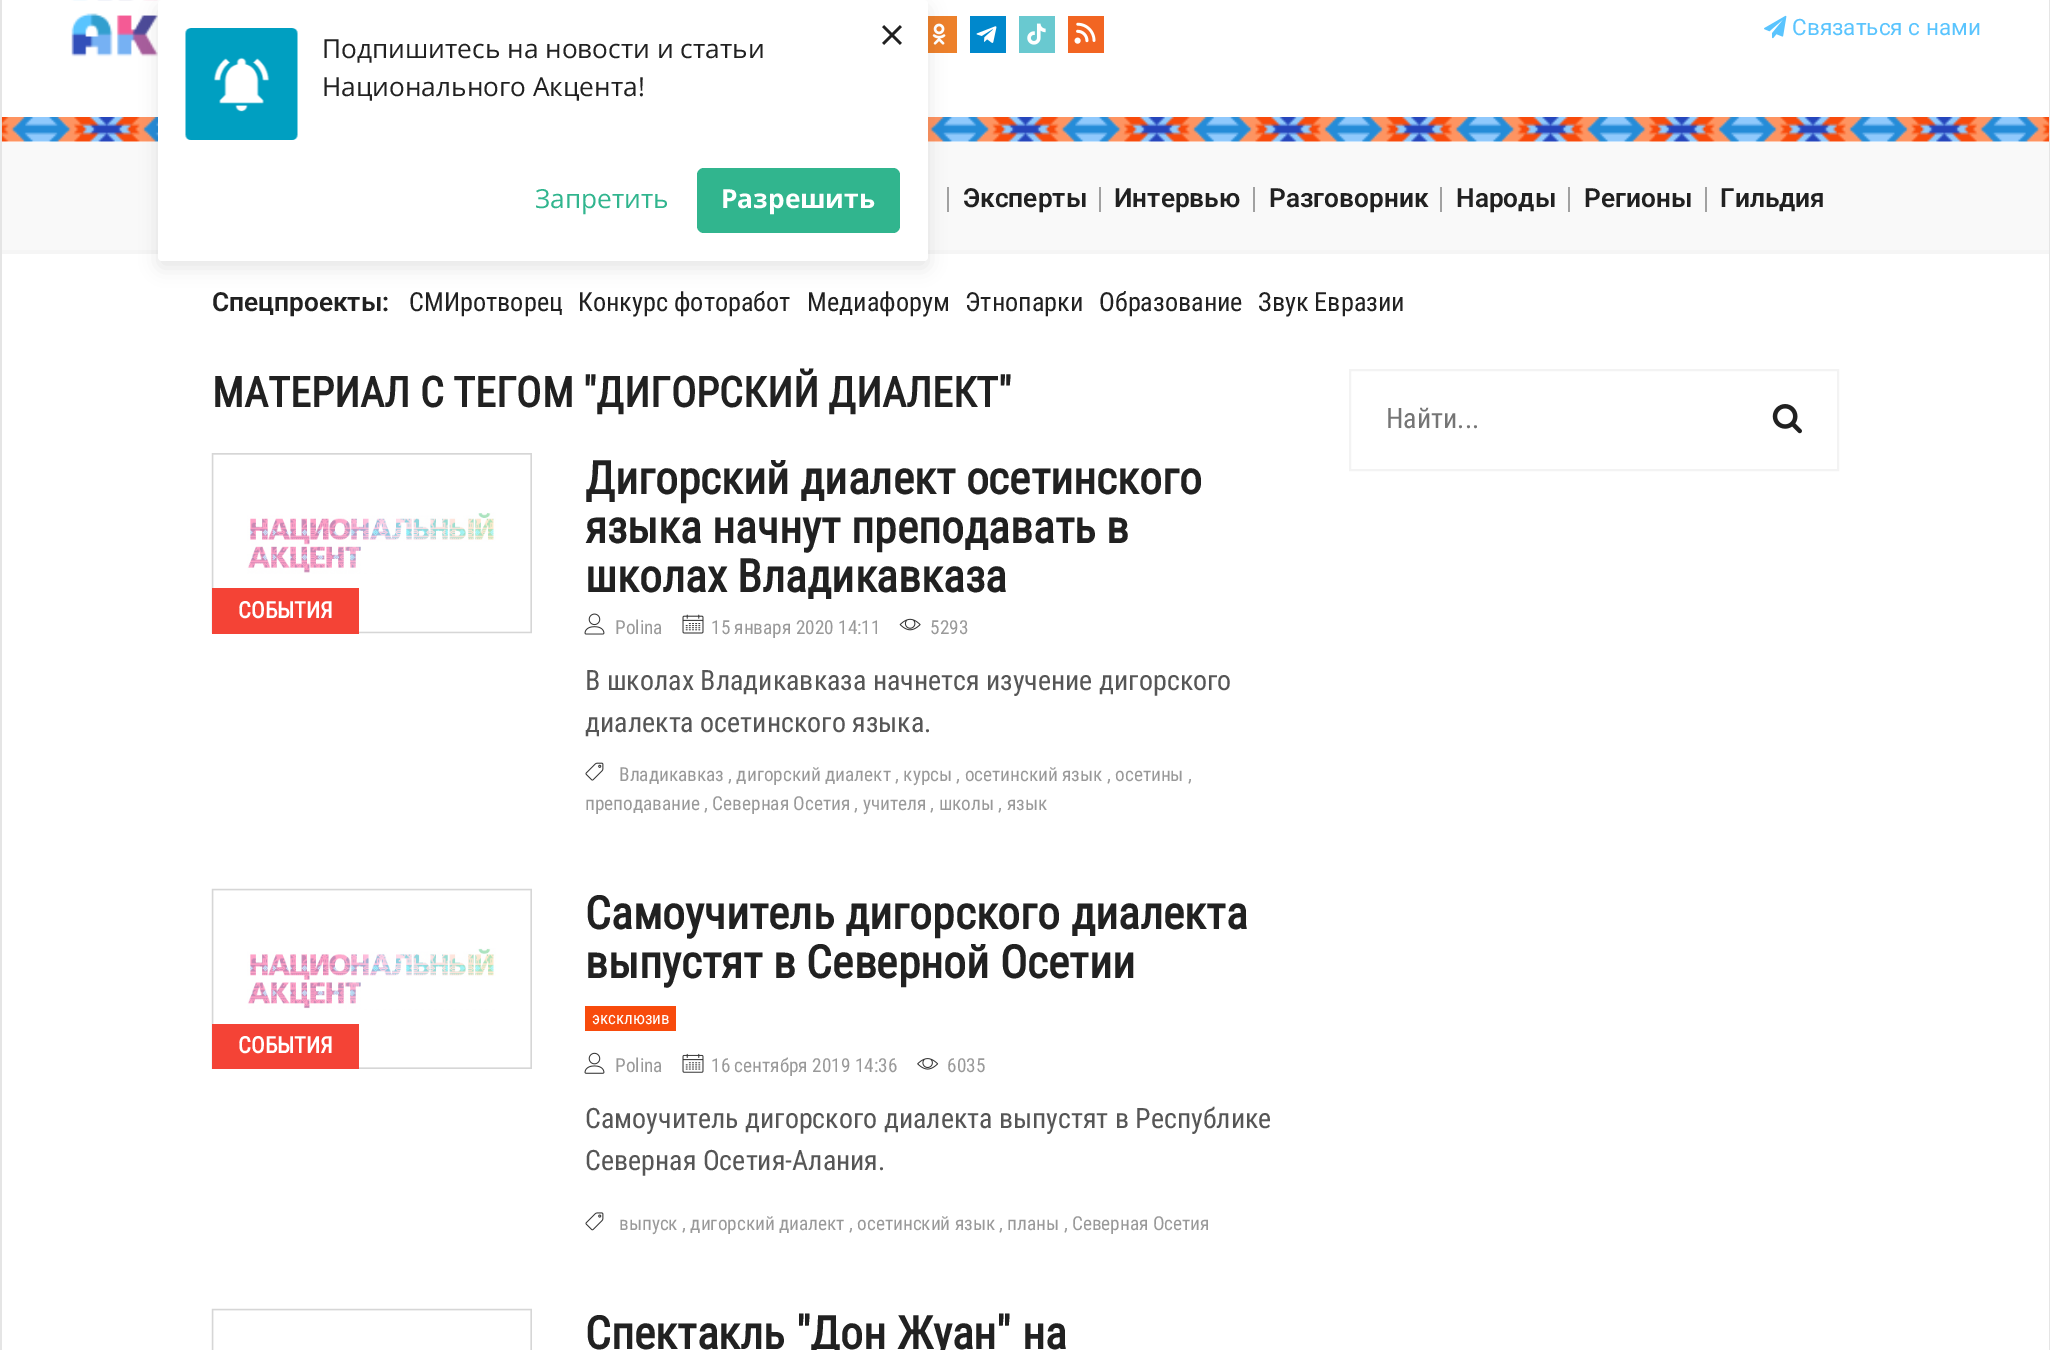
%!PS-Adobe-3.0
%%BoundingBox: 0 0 2050 1350
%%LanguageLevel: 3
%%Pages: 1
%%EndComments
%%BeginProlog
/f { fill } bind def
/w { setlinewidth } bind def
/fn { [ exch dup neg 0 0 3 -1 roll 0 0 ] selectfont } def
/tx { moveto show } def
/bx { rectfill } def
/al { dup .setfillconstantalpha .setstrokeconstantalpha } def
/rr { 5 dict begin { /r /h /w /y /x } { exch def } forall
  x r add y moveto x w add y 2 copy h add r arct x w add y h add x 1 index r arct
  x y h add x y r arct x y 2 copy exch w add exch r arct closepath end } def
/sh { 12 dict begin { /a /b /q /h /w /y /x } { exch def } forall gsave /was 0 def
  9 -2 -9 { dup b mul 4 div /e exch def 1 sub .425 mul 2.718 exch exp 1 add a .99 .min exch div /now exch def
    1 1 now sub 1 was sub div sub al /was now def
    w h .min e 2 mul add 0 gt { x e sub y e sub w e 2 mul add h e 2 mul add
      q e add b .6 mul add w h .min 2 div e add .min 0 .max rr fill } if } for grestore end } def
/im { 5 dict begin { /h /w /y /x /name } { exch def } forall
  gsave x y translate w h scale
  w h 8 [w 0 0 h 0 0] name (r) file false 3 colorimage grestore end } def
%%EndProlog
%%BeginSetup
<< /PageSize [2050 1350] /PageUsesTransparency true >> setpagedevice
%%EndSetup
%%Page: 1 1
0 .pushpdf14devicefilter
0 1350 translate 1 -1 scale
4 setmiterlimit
1 setgray
0 0 2050 1350 bx
0.898 setgray
2049 0 1 1350 bx
0 0 2 1350 bx
(image0.raw) 71 0 87 57 im
(image1.raw) 928 16 29 37 im
(image2.raw) 970 16 36 37 im
(image3.raw) 1019 16 36 37 im
(image4.raw) 1068 16 36 37 im
(image5.raw) 1764 15 23 24 im
/Roboto-Regular 22.5 fn
0.353 0.769 0.996 setrgbcolor
(Связаться с нами) 1792 35 tx
(image6.raw) 1 117 2049 25 im
0.976 setgray
2 142 2047 108 bx
0.961 setgray
2 250 2047 4 bx
0.631 setgray
947 187 2 25 bx
/Roboto-SemiBold 26.25 fn
0.129 setgray
(Эксперты) 963 207 tx
0.631 setgray
1099 187 2 25 bx
0.129 setgray
(Интервью) 1114 207 tx
0.631 setgray
1253 187 2 25 bx
0.129 setgray
(Разговорник) 1269 207 tx
0.631 setgray
1440 187 2 25 bx
0.129 setgray
(Народы) 1456 207 tx
0.631 setgray
1568 187 2 25 bx
0.129 setgray
(Регионы) 1584 207 tx
0.631 setgray
1705 187 2 25 bx
0.129 setgray
(Гильдия) 1720 207 tx
(Спецпроекты:) 212 311 tx
/RobotoCondensed-Regular 26.25 fn
(СМИротворец) 409 311 tx
(Конкурс фоторабот) 578 311 tx
(Медиафорум) 807 311 tx
(Этнопарки) 965 311 tx
(Образование) 1099 311 tx
(Звук Евразии) 1258 311 tx
/RobotoCondensed-Bold 42 fn
(МАТЕРИАЛ С ТЕГОМ "ДИГОРСКИЙ ДИАЛЕКТ") 212 407 tx
(image7.raw) 211 453 321 181 im
0.957 0.263 0.212 setrgbcolor
212 588 147 46 bx
/RobotoCondensed-Bold 22.75 fn
1 setgray
(СОБЫТИЯ) 238 618 tx
/RobotoCondensed-Bold 45.5 fn
0.129 setgray
(Дигорский диалект осетинского) 585 494 tx
(языка начнут преподавать в) 585 543 tx
(школах Владикавказа) 585 592 tx
(image8.raw) 584 613 21 22 im
/RobotoCondensed-Regular 19.25 fn
0.6 setgray
(Polina) 615 634 tx
(image9.raw) 682 614 22 20 im
(15 января 2020 14:11) 711 634 tx
(image10.raw) 899 618 22 13 im
(5293) 930 634 tx
/RobotoCondensed-Regular 28 fn
0.337 setgray
(В школах Владикавказа начнется изучение дигорского) 585 690 tx
(диалекта осетинского языка.) 585 732 tx
(image11.raw) 585 762 19 19 im
/RobotoCondensed-Regular 19.25 fn
0.6 setgray
(Владикавказ , дигорский диалект , курсы , осетинский язык , осетины ,) 619 781 tx
(преподавание , Северная Осетия , учителя , школы , язык) 585 810 tx
(image12.raw) 211 888 321 181 im
0.957 0.263 0.212 setrgbcolor
212 1024 147 45 bx
/RobotoCondensed-Bold 22.75 fn
1 setgray
(СОБЫТИЯ) 238 1053 tx
/RobotoCondensed-Bold 45.5 fn
0.129 setgray
(Самоучитель дигорского диалекта) 585 929 tx
(выпустят в Северной Осетии) 585 978 tx
0.973 0.294 0.047 setrgbcolor
585 1006 91 25 bx
/RobotoCondensed-Regular 17 fn
1 setgray
(эксклюзив) 592 1024 tx
(image13.raw) 584 1052 21 22 im
/RobotoCondensed-Regular 19.25 fn
0.6 setgray
(Polina) 615 1072 tx
(image14.raw) 682 1053 22 20 im
(16 сентября 2019 14:36) 711 1072 tx
(image15.raw) 917 1058 22 12 im
(6035) 947 1072 tx
/RobotoCondensed-Regular 28 fn
0.337 setgray
(Самоучитель дигорского диалекта выпустят в Республике) 585 1128 tx
(Северная Осетия-Алания.) 585 1170 tx
(image16.raw) 585 1212 19 19 im
/RobotoCondensed-Regular 19.25 fn
0.6 setgray
(выпуск , дигорский диалект , осетинский язык , планы , Северная Осетия) 619 1230 tx
(image17.raw) 211 1308 321 42 im
/RobotoCondensed-Bold 45.5 fn
0.129 setgray
(Спектакль "Дон Жуан" на) 585 1349 tx
0.953 setgray
2 w
1350 370 488 100 rectstroke
/RobotoCondensed-Regular 28 fn
0.459 setgray
(Найти...) 1386 428 tx
(image18.raw) 1772 404 30 30 im
0 setgray
158 7 770 261 4 9 0.1 sh
1 setgray
158 0 770 261 4 rr f
/OpenSans-Regular 45.5 fn
0.129 setgray
(×) 879 51 tx
(image19.raw) 185 28 113 112 im
/OpenSans-Regular 26.25 fn
(Подпишитесь на новости и статьи) 322 58 tx
(Национального Акцента!) 322 96 tx
0.192 0.71 0.557 setrgbcolor
(Запретить) 535 208 tx
697 168 203 65 7 rr f
/OpenSans-Bold 26.25 fn
1 setgray
(Разрешить) 721 208 tx
.poppdf14devicefilter showpage
%%EOF
